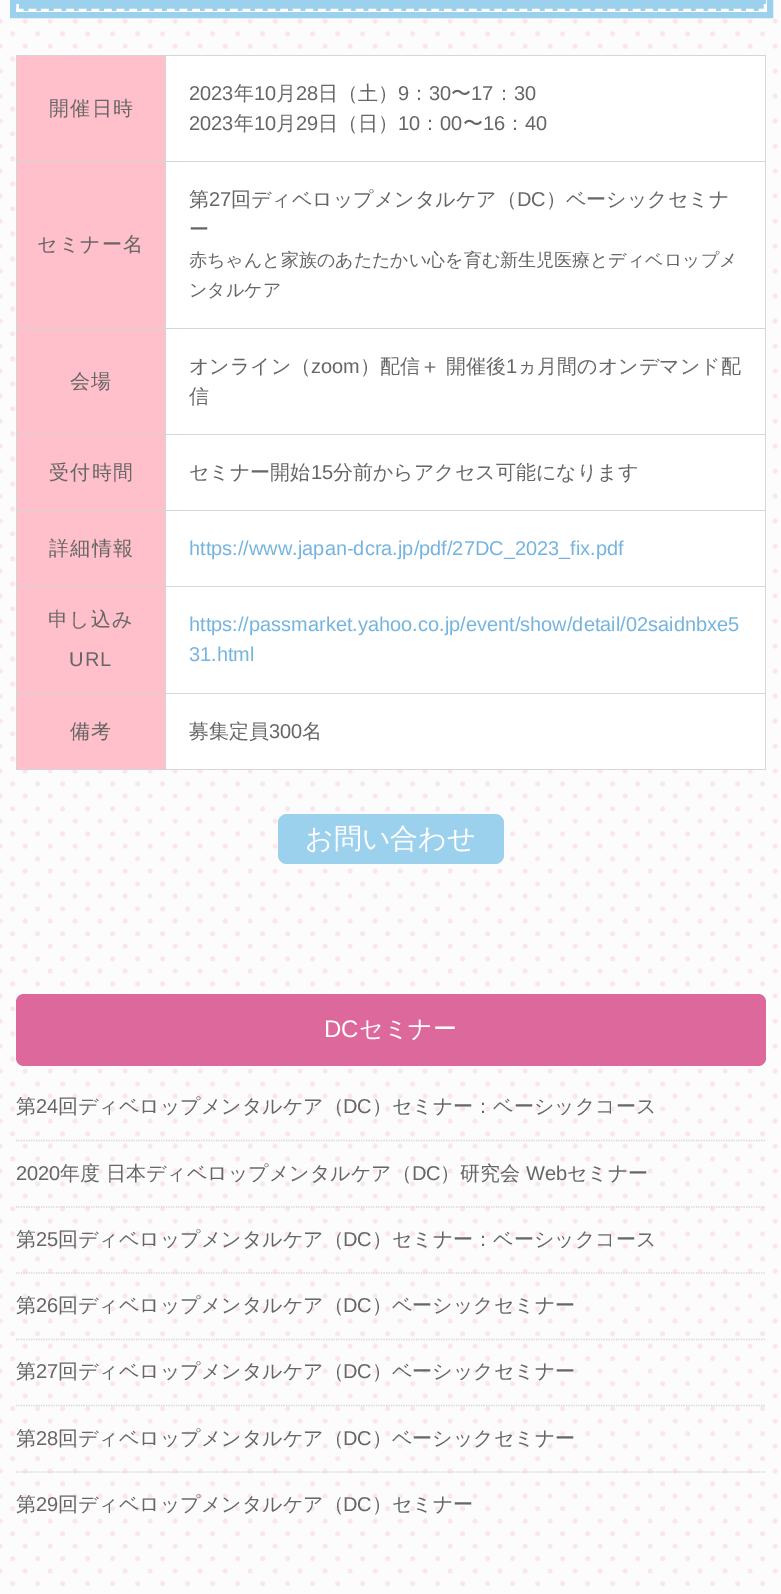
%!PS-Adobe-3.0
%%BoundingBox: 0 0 781 1594
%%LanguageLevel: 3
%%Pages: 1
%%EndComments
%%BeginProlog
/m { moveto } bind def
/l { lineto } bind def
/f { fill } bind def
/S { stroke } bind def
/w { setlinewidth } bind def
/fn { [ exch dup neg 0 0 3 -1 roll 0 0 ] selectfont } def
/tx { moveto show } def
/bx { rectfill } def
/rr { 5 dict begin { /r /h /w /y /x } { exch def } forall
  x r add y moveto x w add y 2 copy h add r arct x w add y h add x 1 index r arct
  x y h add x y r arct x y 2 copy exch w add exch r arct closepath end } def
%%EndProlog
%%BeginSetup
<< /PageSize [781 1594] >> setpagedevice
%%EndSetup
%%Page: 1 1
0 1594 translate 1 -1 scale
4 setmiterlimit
0.988 setgray
0 0 781 1594 bx
0.984 0.902 0.937 setrgbcolor
5 w
1 setlinecap
[0 25] 0 setdash
0 21.2 m 0 1571.5 l S
25 21.2 m 25 1571.5 l S
50 21.2 m 50 1571.5 l S
75 21.2 m 75 1571.5 l S
100 21.2 m 100 1571.5 l S
125 21.2 m 125 1571.5 l S
150 21.2 m 150 1571.5 l S
175 21.2 m 175 1571.5 l S
200 21.2 m 200 1571.5 l S
225 21.2 m 225 1571.5 l S
250 21.2 m 250 1571.5 l S
275 21.2 m 275 1571.5 l S
300 21.2 m 300 1571.5 l S
325 21.2 m 325 1571.5 l S
350 21.2 m 350 1571.5 l S
375 21.2 m 375 1571.5 l S
400 21.2 m 400 1571.5 l S
425 21.2 m 425 1571.5 l S
450 21.2 m 450 1571.5 l S
475 21.2 m 475 1571.5 l S
500 21.2 m 500 1571.5 l S
525 21.2 m 525 1571.5 l S
550 21.2 m 550 1571.5 l S
575 21.2 m 575 1571.5 l S
600 21.2 m 600 1571.5 l S
625 21.2 m 625 1571.5 l S
650 21.2 m 650 1571.5 l S
675 21.2 m 675 1571.5 l S
700 21.2 m 700 1571.5 l S
725 21.2 m 725 1571.5 l S
750 21.2 m 750 1571.5 l S
775 21.2 m 775 1571.5 l S
12.5 8.8 m 12.5 1584 l S
37.5 8.8 m 37.5 1584 l S
62.5 8.8 m 62.5 1584 l S
87.5 8.8 m 87.5 1584 l S
112.5 8.8 m 112.5 1584 l S
137.5 8.8 m 137.5 1584 l S
162.5 8.8 m 162.5 1584 l S
187.5 8.8 m 187.5 1584 l S
212.5 8.8 m 212.5 1584 l S
237.5 8.8 m 237.5 1584 l S
262.5 8.8 m 262.5 1584 l S
287.5 8.8 m 287.5 1584 l S
312.5 8.8 m 312.5 1584 l S
337.5 8.8 m 337.5 1584 l S
362.5 8.8 m 362.5 1584 l S
387.5 8.8 m 387.5 1584 l S
412.5 8.8 m 412.5 1584 l S
437.5 8.8 m 437.5 1584 l S
462.5 8.8 m 462.5 1584 l S
487.5 8.8 m 487.5 1584 l S
512.5 8.8 m 512.5 1584 l S
537.5 8.8 m 537.5 1584 l S
562.5 8.8 m 562.5 1584 l S
587.5 8.8 m 587.5 1584 l S
612.5 8.8 m 612.5 1584 l S
637.5 8.8 m 637.5 1584 l S
662.5 8.8 m 662.5 1584 l S
687.5 8.8 m 687.5 1584 l S
712.5 8.8 m 712.5 1584 l S
737.5 8.8 m 737.5 1584 l S
762.5 8.8 m 762.5 1584 l S
0.612 0.82 0.929 setrgbcolor
6 w
0 setlinecap
[] 0 setdash
13 -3 757 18 rectstroke
16 0 750 11 bx
1 setgray
2.5 w
[7.5 4.5] 0 setdash
765 -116 m 765 11 l S
[7.5 5.09] 0 setdash
16 10 m 766 10 l S
[7.5 4.5] 0 setdash
17.5 -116 m 17.5 11 l S
1 0.753 0.796 setrgbcolor
17 56 148 272 bx
0.839 setgray
165 55 601 1 bx
0.831 setgray
16 55 150 1 bx
1 setgray
166 56 599 272 bx
0.839 setgray
765 161 1 609 bx
765 55 1 108 bx
0.831 setgray
16 161 150 1 bx
16 328 150 1 bx
16 434 150 1 bx
16 510 150 1 bx
1 setgray
166 511 599 182 bx
1 0.753 0.796 setrgbcolor
17 511 148 182 bx
0.831 setgray
16 586 150 1 bx
16 693 150 1 bx
0.839 setgray
165 769 601 1 bx
0.831 setgray
165 693 1 77 bx
0.839 setgray
165 693 601 1 bx
0.831 setgray
165 586 1 108 bx
0.839 setgray
165 586 601 1 bx
0.831 setgray
165 510 1 78 bx
0.839 setgray
165 510 601 1 bx
0.831 setgray
165 434 1 77 bx
0.839 setgray
165 434 601 1 bx
0.831 setgray
165 328 1 107 bx
0.839 setgray
165 328 601 1 bx
0.831 setgray
165 161 1 168 bx
0.839 setgray
165 161 601 1 bx
0.831 setgray
165 55 1 108 bx
16 769 150 1 bx
16 693 1 77 bx
16 586 1 108 bx
16 510 1 78 bx
16 434 1 77 bx
16 328 1 107 bx
16 161 1 168 bx
16 55 1 108 bx
/WenQuanYiZenHei-Medium 20 fn
0.4 setgray
49 115 m 1.25 0 (開催日時) ashow
/LiberationSans-Regular 20 fn
(2023) 189 100 tx
/WenQuanYiZenHei-Medium 20 fn
(年) 234 100 tx
/LiberationSans-Regular 20 fn
(10) 254 100 tx
/WenQuanYiZenHei-Medium 20 fn
(月) 276 100 tx
/LiberationSans-Regular 20 fn
(28) 296 100 tx
/WenQuanYiZenHei-Medium 20 fn
(日（土）) 318 100 tx
/LiberationSans-Regular 20 fn
(9) 398 100 tx
/WenQuanYiZenHei-Medium 20 fn
(：) 409 100 tx
/LiberationSans-Regular 20 fn
(30) 429 100 tx
/WenQuanYiZenHei-Medium 20 fn
(〜) 451 100 tx
/LiberationSans-Regular 20 fn
(17) 471 100 tx
/WenQuanYiZenHei-Medium 20 fn
(：) 494 100 tx
/LiberationSans-Regular 20 fn
(30) 514 100 tx
(2023) 189 130 tx
/WenQuanYiZenHei-Medium 20 fn
(年) 234 130 tx
/LiberationSans-Regular 20 fn
(10) 254 130 tx
/WenQuanYiZenHei-Medium 20 fn
(月) 276 130 tx
/LiberationSans-Regular 20 fn
(29) 296 130 tx
/WenQuanYiZenHei-Medium 20 fn
(日（日）) 318 130 tx
/LiberationSans-Regular 20 fn
(10) 398 130 tx
/WenQuanYiZenHei-Medium 20 fn
(：) 420 130 tx
/LiberationSans-Regular 20 fn
(00) 440 130 tx
/WenQuanYiZenHei-Medium 20 fn
(〜) 463 130 tx
/LiberationSans-Regular 20 fn
(16) 483 130 tx
/WenQuanYiZenHei-Medium 20 fn
(：) 505 130 tx
/LiberationSans-Regular 20 fn
(40) 525 130 tx
/WenQuanYiZenHei-Medium 20 fn
37 251 m 1.25 0 (セミナー名) ashow
(第) 189 206 tx
/LiberationSans-Regular 20 fn
(27) 209 206 tx
/WenQuanYiZenHei-Medium 20 fn
(回ディベロップメンタルケア（) 231 206 tx
/LiberationSans-Regular 20 fn
(DC) 517 206 tx
/WenQuanYiZenHei-Medium 20 fn
(）ベーシックセミナ) 546 206 tx
(ー) 189 236 tx
/WenQuanYiZenHei-Medium 18 fn
(赤ちゃんと家族のあたたかい心を育む新生児医療とディベロップメ) 189 266 tx
(ンタルケア) 189 296 tx
1 0.753 0.796 setrgbcolor
17 329 148 105 bx
/WenQuanYiZenHei-Medium 20 fn
0.4 setgray
70 388 m 1.25 0 (会場) ashow
1 setgray
166 329 599 105 bx
0.4 setgray
(オンライン（) 189 373 tx
/LiberationSans-Regular 20 fn
(zoom) 311 373 tx
/WenQuanYiZenHei-Medium 20 fn
(）配信＋ 開催後) 360 373 tx
/LiberationSans-Regular 20 fn
(1) 506 373 tx
/WenQuanYiZenHei-Medium 20 fn
(ヵ月間のオンデマンド配) 517 373 tx
(信) 189 403 tx
1 0.753 0.796 setrgbcolor
17 435 148 75 bx
0.4 setgray
49 479 m 1.25 0 (受付時間) ashow
1 setgray
166 435 599 75 bx
0.4 setgray
(セミナー開始) 189 479 tx
/LiberationSans-Regular 20 fn
(15) 311 479 tx
/WenQuanYiZenHei-Medium 20 fn
(分前からアクセス可能になります) 333 479 tx
49 555 m 1.25 0 (詳細情報) ashow
/LiberationSans-Regular 20 fn
0.455 0.706 0.875 setrgbcolor
(https://www.japan-dcra.jp/pdf/27DC_2023_fix.pdf) 189 555 tx
/WenQuanYiZenHei-Medium 20 fn
0.4 setgray
48 626 m 1.25 0 (申し込み) ashow
/LiberationSans-Regular 20 fn
69 666 m 1.25 0 (URL) ashow
0.455 0.706 0.875 setrgbcolor
(https://passmarket.yahoo.co.jp/event/show/detail/02saidnbxe5) 189 631 tx
(31.html) 189 661 tx
1 0.753 0.796 setrgbcolor
17 694 148 75 bx
/WenQuanYiZenHei-Medium 20 fn
0.4 setgray
70 738 m 1.25 0 (備考) ashow
1 setgray
166 694 599 75 bx
0.4 setgray
(募集定員) 189 738 tx
/LiberationSans-Regular 20 fn
(300) 269 738 tx
/WenQuanYiZenHei-Medium 20 fn
(名) 302 738 tx
0.612 0.82 0.929 setrgbcolor
278 814 226 50 9 rr f
/WenQuanYiZenHei-Medium 28 fn
1 setgray
(お問い合わせ) 305 848 tx
0.867 0.412 0.612 setrgbcolor
16 994 750 72 8 rr f
/LiberationSans-Regular 24 fn
1 setgray
(DC) 324 1037 tx
/WenQuanYiZenHei-Medium 24 fn
(セミナー) 359 1037 tx
0.839 setgray
1.2 w
[1.25 1.25] 0 setdash
16 1140.5 m 766 1140.5 l S
/WenQuanYiZenHei-Medium 20 fn
0.4 setgray
(第) 16 1113 tx
/LiberationSans-Regular 20 fn
(24) 36 1113 tx
/WenQuanYiZenHei-Medium 20 fn
(回ディベロップメンタルケア（) 58 1113 tx
/LiberationSans-Regular 20 fn
(DC) 343 1113 tx
/WenQuanYiZenHei-Medium 20 fn
(）セミナー：ベーシックコース) 372 1113 tx
0.839 setgray
16 1207 m 766 1207 l S
/LiberationSans-Regular 20 fn
0.4 setgray
(2020) 16 1180 tx
/WenQuanYiZenHei-Medium 20 fn
(年度 日本ディベロップメンタルケア（) 60 1180 tx
/LiberationSans-Regular 20 fn
(DC) 412 1180 tx
/WenQuanYiZenHei-Medium 20 fn
(）研究会) 440 1180 tx
/LiberationSans-Regular 20 fn
(Web) 526 1180 tx
/WenQuanYiZenHei-Medium 20 fn
(セミナー) 567 1180 tx
0.839 setgray
16 1273 m 766 1273 l S
0.4 setgray
(第) 16 1246 tx
/LiberationSans-Regular 20 fn
(25) 36 1246 tx
/WenQuanYiZenHei-Medium 20 fn
(回ディベロップメンタルケア（) 58 1246 tx
/LiberationSans-Regular 20 fn
(DC) 343 1246 tx
/WenQuanYiZenHei-Medium 20 fn
(）セミナー：ベーシックコース) 372 1246 tx
0.839 setgray
16 1339.5 m 766 1339.5 l S
0.4 setgray
(第) 16 1312 tx
/LiberationSans-Regular 20 fn
(26) 36 1312 tx
/WenQuanYiZenHei-Medium 20 fn
(回ディベロップメンタルケア（) 58 1312 tx
/LiberationSans-Regular 20 fn
(DC) 343 1312 tx
/WenQuanYiZenHei-Medium 20 fn
(）ベーシックセミナー) 372 1312 tx
0.839 setgray
16 1405.5 m 766 1405.5 l S
0.4 setgray
(第) 16 1378 tx
/LiberationSans-Regular 20 fn
(27) 36 1378 tx
/WenQuanYiZenHei-Medium 20 fn
(回ディベロップメンタルケア（) 58 1378 tx
/LiberationSans-Regular 20 fn
(DC) 343 1378 tx
/WenQuanYiZenHei-Medium 20 fn
(）ベーシックセミナー) 372 1378 tx
0.839 setgray
16 1472 m 766 1472 l S
0.4 setgray
(第) 16 1445 tx
/LiberationSans-Regular 20 fn
(28) 36 1445 tx
/WenQuanYiZenHei-Medium 20 fn
(回ディベロップメンタルケア（) 58 1445 tx
/LiberationSans-Regular 20 fn
(DC) 343 1445 tx
/WenQuanYiZenHei-Medium 20 fn
(）ベーシックセミナー) 372 1445 tx
(第) 16 1511 tx
/LiberationSans-Regular 20 fn
(29) 36 1511 tx
/WenQuanYiZenHei-Medium 20 fn
(回ディベロップメンタルケア（) 58 1511 tx
/LiberationSans-Regular 20 fn
(DC) 343 1511 tx
/WenQuanYiZenHei-Medium 20 fn
(）セミナー) 372 1511 tx
showpage
%%EOF
